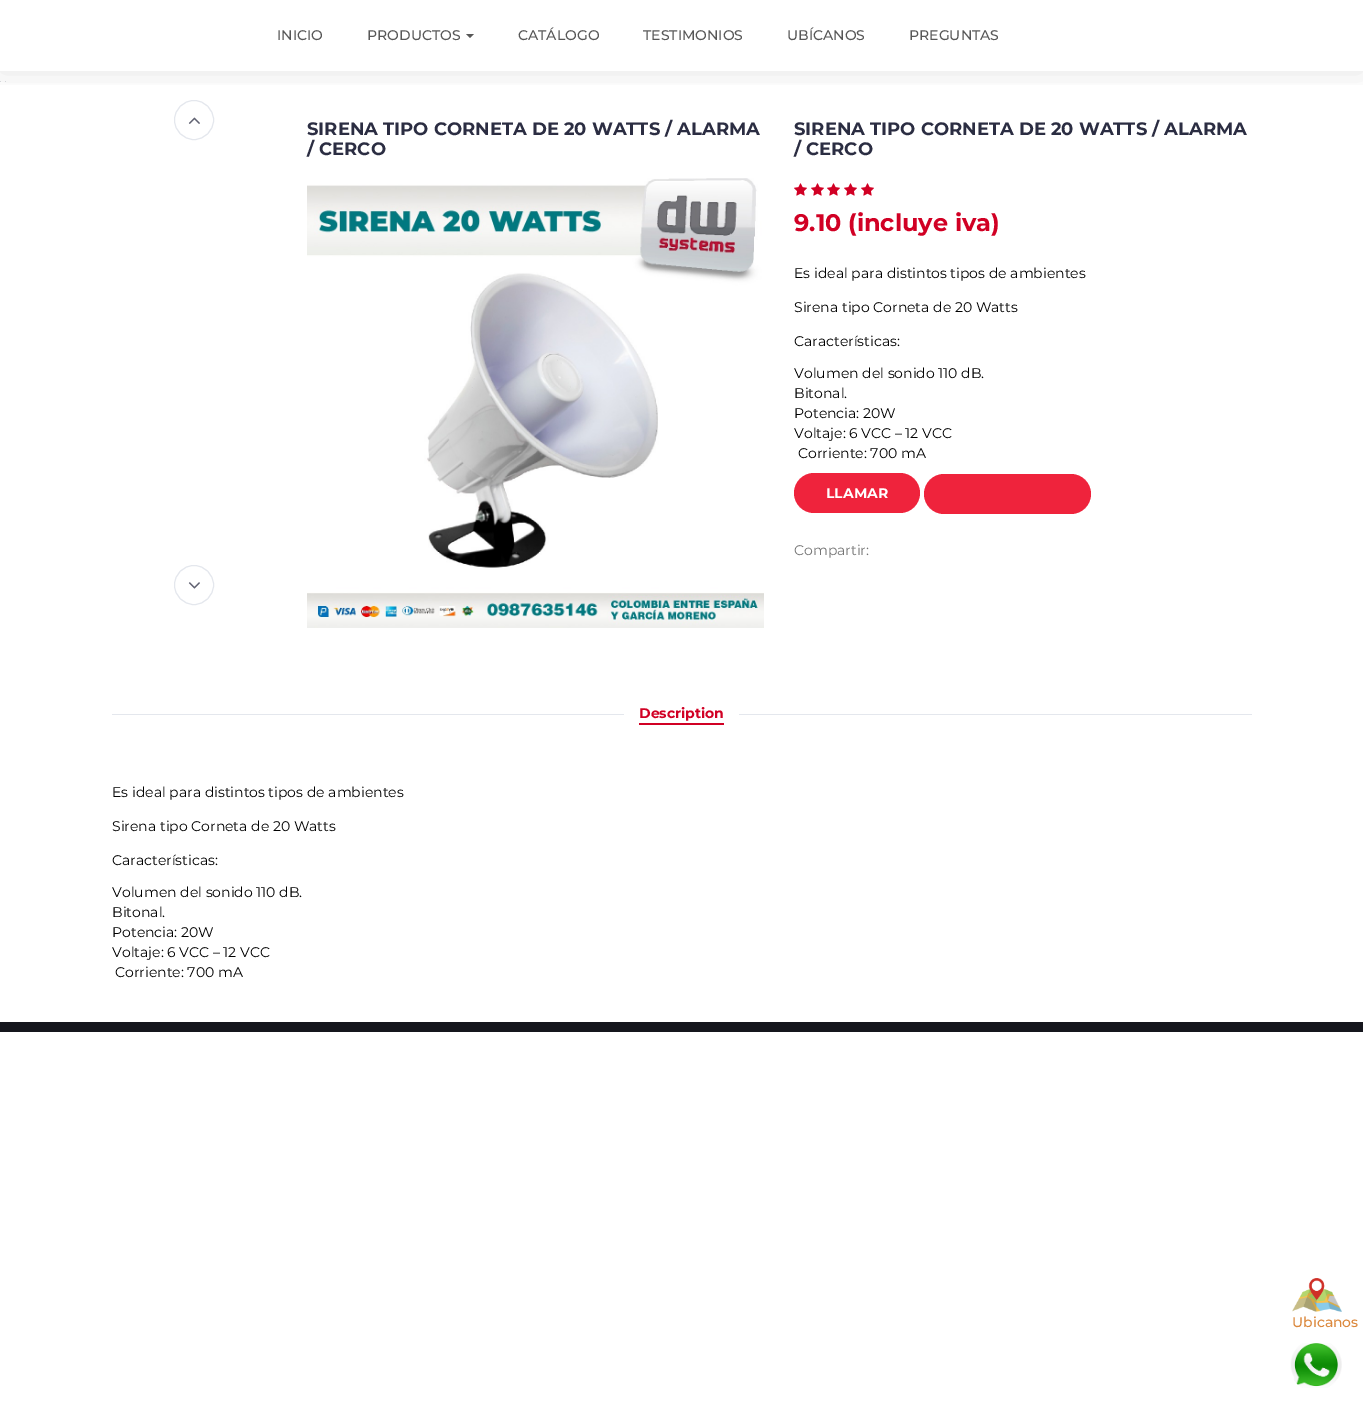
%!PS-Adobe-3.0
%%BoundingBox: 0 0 1363 1412
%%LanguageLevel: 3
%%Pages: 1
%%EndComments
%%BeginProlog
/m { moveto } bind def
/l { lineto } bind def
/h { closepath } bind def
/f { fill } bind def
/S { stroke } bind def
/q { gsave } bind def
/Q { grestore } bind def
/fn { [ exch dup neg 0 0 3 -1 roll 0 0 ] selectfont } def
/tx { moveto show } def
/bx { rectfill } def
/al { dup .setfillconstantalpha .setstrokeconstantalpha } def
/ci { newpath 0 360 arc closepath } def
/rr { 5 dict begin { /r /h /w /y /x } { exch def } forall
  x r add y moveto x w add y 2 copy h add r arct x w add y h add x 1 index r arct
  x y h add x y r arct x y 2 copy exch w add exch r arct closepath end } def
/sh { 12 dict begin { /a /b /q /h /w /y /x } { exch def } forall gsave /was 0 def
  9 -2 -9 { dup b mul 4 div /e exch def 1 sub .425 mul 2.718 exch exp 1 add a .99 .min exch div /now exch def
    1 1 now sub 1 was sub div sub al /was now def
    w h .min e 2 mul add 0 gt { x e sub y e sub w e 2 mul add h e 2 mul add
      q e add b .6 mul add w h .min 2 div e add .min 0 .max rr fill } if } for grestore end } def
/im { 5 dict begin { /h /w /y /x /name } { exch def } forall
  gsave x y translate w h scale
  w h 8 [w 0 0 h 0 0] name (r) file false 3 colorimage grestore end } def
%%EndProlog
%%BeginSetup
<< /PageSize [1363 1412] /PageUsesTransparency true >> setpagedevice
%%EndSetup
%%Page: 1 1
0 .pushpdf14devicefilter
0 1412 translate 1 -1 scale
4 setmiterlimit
1 setgray
0 0 1363 1412 bx
0.859 0.867 0.878 setrgbcolor
0 81 1 1 bx
5 81 1 1 bx
0.894 0.906 0.929 setrgbcolor
194 120 19.5 ci S
(image0.raw) 188 117 12 7 im
q
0 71 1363 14 rectclip
0 setgray
0 1 1363 71 0 15 0.1 sh
Q
/Montserrat-Medium 14 fn
0.341 setgray
(INICIO) 277 40 tx
(PRODUCTOS) 367 40 tx
466 34 m 474 34 l 470 38 l h f
(CATÁLOGO) 518 40 tx
(TESTIMONIOS) 643 40 tx
(UBÍCANOS) 787 40 tx
(PREGUNTAS) 909 40 tx
0.894 0.906 0.929 setrgbcolor
194 585 19.5 ci S
(image1.raw) 188 582 12 7 im
/Montserrat-Bold 18 fn
0.169 0.176 0.259 setrgbcolor
(SIRENA TIPO CORNETA DE 20 WATTS / ALARMA) 307 135 tx
(/ CERCO) 307 155 tx
(image2.raw) 307 178 457 450 im
(SIRENA TIPO CORNETA DE 20 WATTS / ALARMA) 794 135 tx
(/ CERCO) 794 155 tx
(image3.raw) 794 183 13 13 im
(image3.raw) 811 183 13 13 im
(image3.raw) 827 183 13 13 im
(image3.raw) 844 183 13 13 im
(image3.raw) 861 183 13 13 im
/Montserrat-Bold 24 fn
0.82 0 0.141 setrgbcolor
(9.10 \(incluye iva\)) 794 231 tx
/Montserrat-Regular 14 fn
0 setgray
(Es ideal para distintos tipos de ambientes) 794 278 tx
(Sirena tipo Corneta de 20 Watts) 794 312 tx
(Características:) 794 346 tx
(Volumen del sonido 110 dB.) 794 378 tx
(Bitonal.) 794 398 tx
(Potencia: 20W) 794 418 tx
(Voltaje: 6 VCC – 12 VCC) 794 438 tx
(Corriente: 700 mA) 798 458 tx
0.937 0.137 0.235 setrgbcolor
794 473 126 40 20 rr f
/Montserrat-Bold 14 fn
1 setgray
(LLAMAR) 826 498 tx
0.937 0.137 0.235 setrgbcolor
924 474 167 40 20 rr f
/Montserrat-Regular 14 fn
0.459 setgray
(Compartir:) 794 555 tx
0.894 0.906 0.929 setrgbcolor
112 714 1140 1 bx
1 setgray
624 714 115 1 bx
/Montserrat-Bold 14 fn
0.82 0 0.141 setrgbcolor
(Description) 639 718 tx
639 723 85 2 bx
/Montserrat-Regular 14 fn
0 setgray
(Es ideal para distintos tipos de ambientes) 112 797 tx
(Sirena tipo Corneta de 20 Watts) 112 831 tx
(Características:) 112 865 tx
(Volumen del sonido 110 dB.) 112 897 tx
(Bitonal.) 112 917 tx
(Potencia: 20W) 112 937 tx
(Voltaje: 6 VCC – 12 VCC) 112 957 tx
(Corriente: 700 mA) 115 977 tx
0.082 0.086 0.114 setrgbcolor
0 1022 1363 10 bx
(image4.raw) 1292 1278 50 34 im
/Montserrat-Medium 14 fn
0.859 0.533 0.239 setrgbcolor
(Ubicanos) 1292 1327 tx
(image5.raw) 1290 1343 52 45 im
.poppdf14devicefilter showpage
%%EOF
